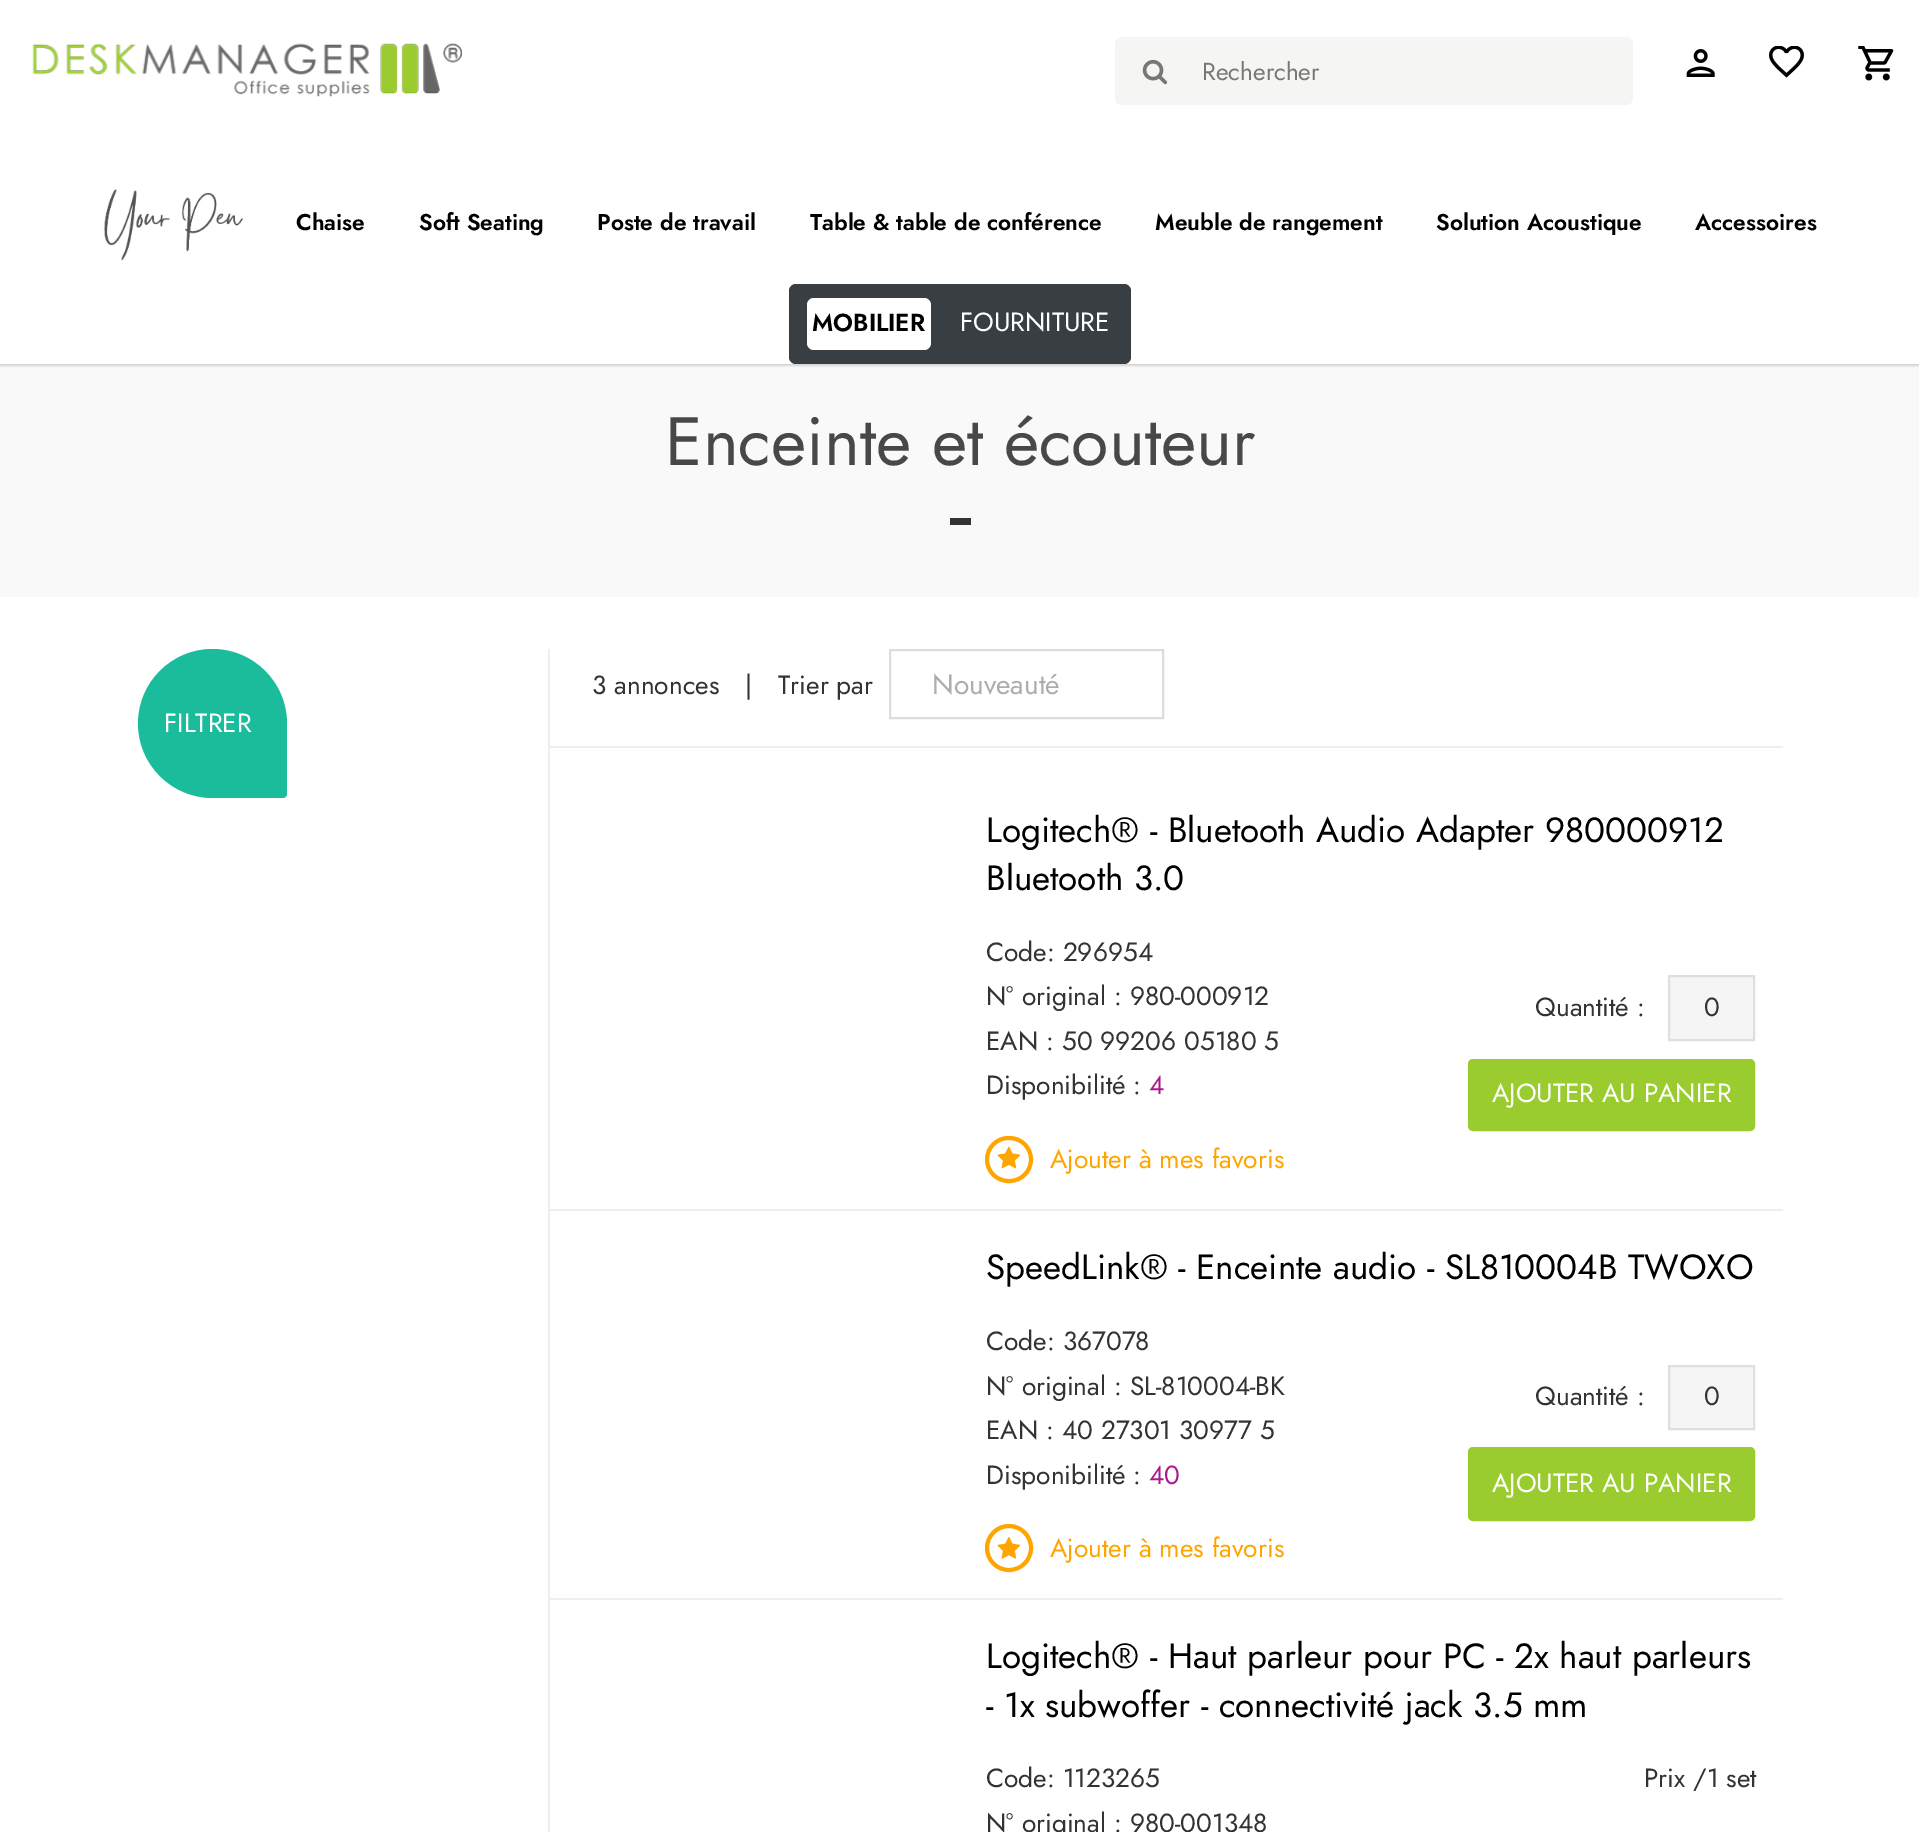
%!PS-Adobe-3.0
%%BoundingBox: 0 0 1919 1832
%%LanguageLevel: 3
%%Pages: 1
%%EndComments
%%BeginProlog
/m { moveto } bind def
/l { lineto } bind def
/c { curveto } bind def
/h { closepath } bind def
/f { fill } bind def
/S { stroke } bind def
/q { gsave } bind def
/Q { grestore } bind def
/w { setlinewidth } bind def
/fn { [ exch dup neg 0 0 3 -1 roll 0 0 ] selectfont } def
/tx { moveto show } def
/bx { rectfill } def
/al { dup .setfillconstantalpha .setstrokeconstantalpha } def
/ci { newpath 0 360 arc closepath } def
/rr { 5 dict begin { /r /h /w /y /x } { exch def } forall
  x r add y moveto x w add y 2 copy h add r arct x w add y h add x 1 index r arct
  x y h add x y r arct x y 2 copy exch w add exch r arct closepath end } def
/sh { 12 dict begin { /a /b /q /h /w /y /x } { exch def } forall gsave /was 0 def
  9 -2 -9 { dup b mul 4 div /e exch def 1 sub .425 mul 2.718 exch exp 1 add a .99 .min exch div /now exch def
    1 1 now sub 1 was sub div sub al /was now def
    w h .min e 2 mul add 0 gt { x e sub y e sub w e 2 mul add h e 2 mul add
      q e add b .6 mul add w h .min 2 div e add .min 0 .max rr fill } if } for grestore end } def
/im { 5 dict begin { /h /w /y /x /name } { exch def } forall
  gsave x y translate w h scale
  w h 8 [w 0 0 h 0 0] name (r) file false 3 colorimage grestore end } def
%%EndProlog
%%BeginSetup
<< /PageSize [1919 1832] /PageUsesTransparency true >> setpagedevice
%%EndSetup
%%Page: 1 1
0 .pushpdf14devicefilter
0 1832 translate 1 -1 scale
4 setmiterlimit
1 setgray
0 0 1919 1832 bx
(image0.raw) 32 43 430 54 im
0.961 0.965 0.957 setrgbcolor
1115 37 518 68 7 rr f
(image1.raw) 1142 59 26 26 im
/Jost-Regular 24.5 fn
0.463 0.471 0.455 setrgbcolor
(Rechercher) 1202 80 tx
(image2.raw) 1686 49 29 28 im
(image3.raw) 1769 46 35 32 im
(image4.raw) 1858 46 36 35 im
0.976 setgray
0 364 1919 233 bx
0 setgray
0 142 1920 224 0 1 0.15 sh
1 setgray
0 141 1919 223 bx
(image5.raw) 103 189 140 72 im
/Jost-SemiBold 22.75 fn
0 setgray
(Chaise) 296 230 tx
(Soft Seating) 419 230 tx
(Poste de travail) 597 230 tx
(Table & table de conférence) 810 230 tx
(Meuble de rangement) 1155 230 tx
(Solution Acoustique) 1436 230 tx
(Accessoires) 1695 230 tx
0.22 0.243 0.259 setrgbcolor
789 284 342 80 7 rr f
1 setgray
807 298 124 52 7 rr f
/Jost-SemiBold 24.5 fn
0 setgray
(MOBILIER) 812 331 tx
/Jost-Regular 26.25 fn
1 setgray
(FOURNITURE) 960 331 tx
/Jost-Regular 68.25 fn
0.282 setgray
(Enceinte et écouteur) 665 465 tx
0.2 setgray
950 518 21 7 bx
0.933 setgray
548 649 2 97 bx
0.106 0.737 0.608 setrgbcolor
212.5 649 m 253.5 649 287 682.5 287 723.5 c 287 794 l 287 796 285 798 283 798 c 212.5 798 l 171.5 798 138 764.5 138 723.5 c 138 682.5 171.5 649 212.5 649 c h f
/Jost-Regular 26.25 fn
1 setgray
(FILTRER) 164 732 tx
0.2 setgray
(3 annonces) 592 694 tx
(|) 745 694 tx
(Trier par) 778 694 tx
0.867 setgray
2 w
890 650 273 68 rectstroke
/Jost-Regular 28 fn
0.678 setgray
(Nouveauté) 932 694 tx
0.933 setgray
548 746 1235 2 bx
548 746 2 1086 bx
550 1209 1233 2 bx
/Jost-Regular 35 fn
0 setgray
(Logitech® - Bluetooth Audio Adapter 980000912) 986 842 tx
(Bluetooth 3.0) 986 890 tx
/Jost-Regular 26.25 fn
0.2 setgray
(Code: 296954) 986 961 tx
(N° original : 980-000912) 986 1005 tx
(EAN : 50 99206 05180 5) 986 1050 tx
(Disponibilité :) 986 1094 tx
0.671 0.102 0.549 setrgbcolor
(4) 1149 1094 tx
1 0.647 0 setrgbcolor
4 w
987 1138 44 43 21.5 rr S
(image6.raw) 997 1146 24 23 im
(Ajouter à mes favoris) 1050 1168 tx
0.2 setgray
(Quantité :) 1535 1016 tx
0.961 setgray
1669 976 m 1754 976 l 1754 1040 l 1669 1040 l h q f Q
0.875 setgray
2 w
S
0.2 setgray
(0) 1704 1016 tx
0.604 0.8 0.184 setrgbcolor
1470 1061 283 68 3 rr q f Q
4 w
S
1 setgray
(AJOUTER AU PANIER) 1492 1102 tx
0.933 setgray
550 1598 1233 2 bx
/Jost-Regular 35 fn
0 setgray
(SpeedLink® - Enceinte audio - SL810004B TWOXO) 986 1279 tx
/Jost-Regular 26.25 fn
0.2 setgray
(Code: 367078) 986 1350 tx
(N° original : SL-810004-BK) 986 1395 tx
(EAN : 40 27301 30977 5) 986 1439 tx
(Disponibilité :) 986 1484 tx
0.671 0.102 0.549 setrgbcolor
(40) 1149 1484 tx
1 0.647 0 setrgbcolor
1009 1548 22 ci S
(image7.raw) 997 1537 24 22 im
(Ajouter à mes favoris) 1050 1557 tx
0.2 setgray
(Quantité :) 1535 1405 tx
0.961 setgray
1669 1366 m 1754 1366 l 1754 1429 l 1669 1429 l h q f Q
0.875 setgray
2 w
S
0.2 setgray
(0) 1704 1405 tx
0.604 0.8 0.184 setrgbcolor
1470 1449 283 70 3 rr q f Q
4 w
S
1 setgray
(AJOUTER AU PANIER) 1492 1492 tx
/Jost-Regular 35 fn
0 setgray
(Logitech® - Haut parleur pour PC - 2x haut parleurs) 986 1668 tx
(- 1x subwoffer - connectivité jack 3.5 mm) 986 1717 tx
/Jost-Regular 26.25 fn
0.2 setgray
(Code: 1123265) 986 1787 tx
(N° original : 980-001348) 986 1832 tx
(Prix /1 set) 1644 1787 tx
.poppdf14devicefilter showpage
%%EOF
